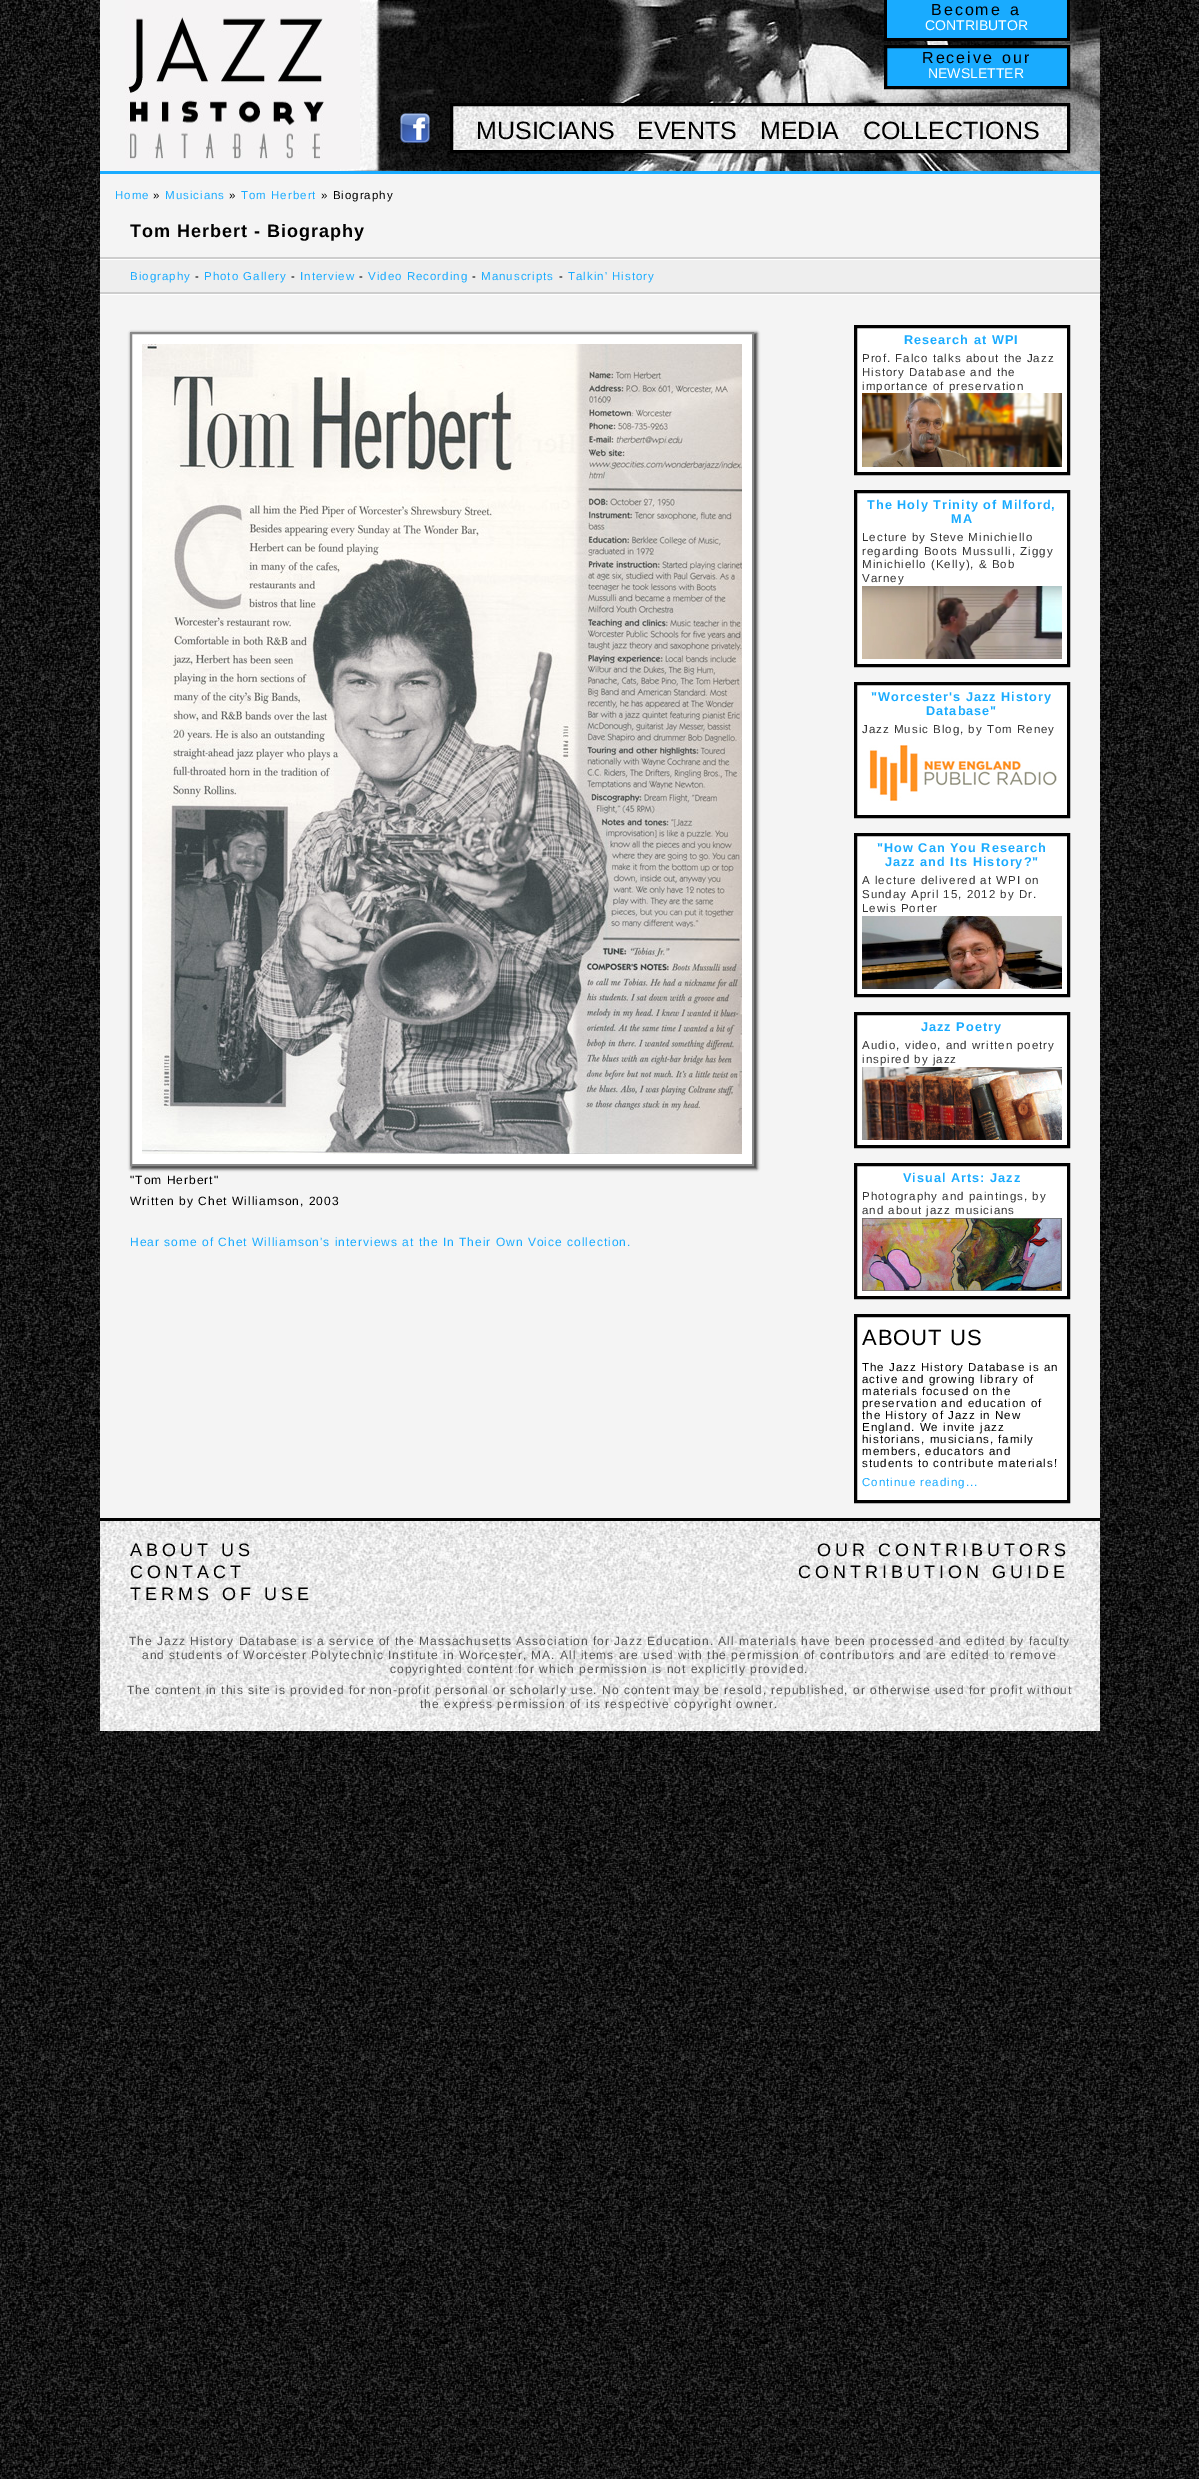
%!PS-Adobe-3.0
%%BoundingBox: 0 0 1199 2479
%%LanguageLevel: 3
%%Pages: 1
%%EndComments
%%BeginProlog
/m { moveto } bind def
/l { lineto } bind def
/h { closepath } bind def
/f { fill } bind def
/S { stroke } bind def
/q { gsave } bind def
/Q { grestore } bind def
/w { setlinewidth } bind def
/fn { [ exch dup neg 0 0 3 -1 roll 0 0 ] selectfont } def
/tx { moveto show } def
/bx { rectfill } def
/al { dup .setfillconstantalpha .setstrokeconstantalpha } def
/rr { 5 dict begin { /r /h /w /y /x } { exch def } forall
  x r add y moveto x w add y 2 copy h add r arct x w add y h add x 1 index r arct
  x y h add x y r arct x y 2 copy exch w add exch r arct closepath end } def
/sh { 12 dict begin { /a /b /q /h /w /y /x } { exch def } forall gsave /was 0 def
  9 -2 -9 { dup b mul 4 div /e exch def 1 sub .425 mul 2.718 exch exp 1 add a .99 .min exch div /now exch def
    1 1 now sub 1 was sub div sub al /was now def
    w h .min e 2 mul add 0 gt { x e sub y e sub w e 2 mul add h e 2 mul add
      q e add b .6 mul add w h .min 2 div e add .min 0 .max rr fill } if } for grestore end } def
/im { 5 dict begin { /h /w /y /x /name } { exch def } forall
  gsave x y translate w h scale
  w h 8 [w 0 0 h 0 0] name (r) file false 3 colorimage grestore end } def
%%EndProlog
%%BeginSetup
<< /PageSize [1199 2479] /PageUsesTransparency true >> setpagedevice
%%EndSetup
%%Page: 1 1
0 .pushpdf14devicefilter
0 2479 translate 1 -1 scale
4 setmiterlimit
1 setgray
0 0 1199 2479 bx
(image0.raw) 0 0 1199 2479 im
0.957 setgray
100 0 1000 1518 bx
(image1.raw) 334 0 766 171 im
0.098 0.671 1 setrgbcolor
100 171 1000 3 bx
(image2.raw) 125 0 235 169 im
887 0 180 38 bx
0 setgray
1067 0 3 41 bx
884 38 186 3 bx
884 0 3 41 bx
/LiberationSans-Regular 16 fn
931 15 m 2 0 32 2 0 (Become a) awidthshow
/LiberationSans-Regular 14 fn
1 setgray
(CONTRIBUTOR) 925 30 tx
0.098 0.671 1 setrgbcolor
885.5 46.5 m 1068.5 46.5 l 1068.5 87.5 l 885.5 87.5 l h q f Q
0 setgray
3 w
S
/LiberationSans-Regular 16 fn
922 63 m 2 0 32 2 0 (Receive our) awidthshow
/LiberationSans-Regular 14 fn
1 setgray
(NEWSLETTER) 928 78 tx
(image3.raw) 400 113 30 30 im
(image4.raw) 453 106 614 44 im
0 setgray
451.5 104.5 617 47 rectstroke
/LiberationSans-Regular 25 fn
(MUSICIANS) 476 139 tx
(EVENTS) 637 139 tx
(MEDIA) 760 139 tx
(COLLECTIONS) 863 139 tx
1 setgray
100 294 1000 1 bx
/LiberationSans-Regular 11.5 fn
0.098 0.671 1 setrgbcolor
115 199 m 1 0 (Home) ashow
0 setgray
153 199 m 1 0 (») ashow
0.098 0.671 1 setrgbcolor
165 199 m 1 0 (Musicians) ashow
0 setgray
229 199 m 1 0 (») ashow
0.098 0.671 1 setrgbcolor
241 199 m 1 0 (Tom Herbert) ashow
0 setgray
321 199 m 1 0 (» Biography) ashow
0.804 setgray
100 257 1000 2 bx
/LiberationSans-Bold 18 fn
0 setgray
130 237 m 1 0 (Tom Herbert - Biography) ashow
0.933 setgray
100 260 1000 32 bx
1 setgray
100 259 1000 1 bx
0.804 setgray
100 292 1000 2 bx
/LiberationSans-Regular 11.5 fn
0.098 0.671 1 setrgbcolor
130 280 m 1 0 (Biography) ashow
0 setgray
195 280 m 1 0 (-) ashow
0.098 0.671 1 setrgbcolor
204 280 m 1 0 (Photo Gallery) ashow
0 setgray
291 280 m 1 0 (-) ashow
0.098 0.671 1 setrgbcolor
300 280 m 1 0 (Interview) ashow
0 setgray
359 280 m 1 0 (-) ashow
0.098 0.671 1 setrgbcolor
368 280 m 1 0 (Video Recording) ashow
0 setgray
472 280 m 1 0 (-) ashow
0.098 0.671 1 setrgbcolor
481 280 m 1 0 (Manuscripts) ashow
0 setgray
559 280 m 1 0 (-) ashow
0.098 0.671 1 setrgbcolor
568 280 m 1 0 (Talkin' History) ashow
0 setgray
131 333 626 836 0 1.5 0.75 sh
1 setgray
131 333 m 753 333 l 753 1165 l 131 1165 l h q f Q
0.533 setgray
2 w
S
(image5.raw) 142 344 600 810 im
/LiberationSans-Regular 12 fn
0 setgray
130 1184 m 1 0 ("Tom Herbert") ashow
130 1205 m 1 0 (Written by Chet Williamson, 2003) ashow
0.098 0.671 1 setrgbcolor
130 1246 m 1 0 (Hear some of Chet Williamson's interviews at the In Their Own Voice collection.) ashow
1 setgray
855.5 326.5 m 1068.5 326.5 l 1068.5 473.5 l 855.5 473.5 l h q f Q
0 setgray
3 w
S
/LiberationSans-Bold 12.7 fn
0.098 0.671 1 setrgbcolor
904 344 m 1 0 (Research at WPI) ashow
/LiberationSans-Regular 11.5 fn
0.2 setgray
862 362 m 1 0 (Prof. Falco talks about the Jazz) ashow
862 376 m 1 0 (History Database and the) ashow
862 390 m 1 0 (importance of preservation) ashow
(image6.raw) 862 393 200 74 im
1 setgray
855.5 491.5 m 1068.5 491.5 l 1068.5 665.5 l 855.5 665.5 l h q f Q
0 setgray
S
/LiberationSans-Bold 12.7 fn
0.098 0.671 1 setrgbcolor
867 509 m 1 0 (The Holy Trinity of Milford,) ashow
951 523 m 1 0 (MA) ashow
/LiberationSans-Regular 11.5 fn
0.2 setgray
862 541 m 1 0 (Lecture by Steve Minichiello) ashow
862 555 m 1 0 (regarding Boots Mussulli, Ziggy) ashow
862 568 m 1 0 (Minichiello \(Kelly\), & Bob) ashow
862 582 m 1 0 (Varney) ashow
(image7.raw) 862 586 200 73 im
1 setgray
855.5 683.5 m 1068.5 683.5 l 1068.5 816.5 l 855.5 816.5 l h q f Q
0 setgray
S
/LiberationSans-Bold 12.7 fn
0.098 0.671 1 setrgbcolor
871 701 m 1 0 ("Worcester's Jazz History) ashow
926 715 m 1 0 (Database") ashow
/LiberationSans-Regular 11.5 fn
0.2 setgray
862 733 m 1 0 (Jazz Music Blog, by Tom Reney) ashow
(image8.raw) 869 745 190 56 im
1 setgray
855.5 834.5 m 1068.5 834.5 l 1068.5 995.5 l 855.5 995.5 l h q f Q
0 setgray
S
/LiberationSans-Bold 12.7 fn
0.098 0.671 1 setrgbcolor
877 852 m 1 0 ("How Can You Research) ashow
885 866 m 1 0 (Jazz and Its History?") ashow
/LiberationSans-Regular 11.5 fn
0.2 setgray
862 884 m 1 0 (A lecture delivered at WPI on) ashow
862 898 m 1 0 (Sunday April 15, 2012 by Dr.) ashow
862 912 m 1 0 (Lewis Porter) ashow
(image9.raw) 862 916 200 73 im
1 setgray
855.5 1013.5 m 1068.5 1013.5 l 1068.5 1146.5 l 855.5 1146.5 l h q f Q
0 setgray
S
/LiberationSans-Bold 12.7 fn
0.098 0.671 1 setrgbcolor
921 1031 m 1 0 (Jazz Poetry) ashow
/LiberationSans-Regular 11.5 fn
0.2 setgray
862 1049 m 1 0 (Audio, video, and written poetry) ashow
862 1063 m 1 0 (inspired by jazz) ashow
(image10.raw) 862 1067 200 73 im
1 setgray
855.5 1164.5 m 1068.5 1164.5 l 1068.5 1297.5 l 855.5 1297.5 l h q f Q
0 setgray
S
/LiberationSans-Bold 12.7 fn
0.098 0.671 1 setrgbcolor
903 1182 m 1 0 (Visual Arts: Jazz) ashow
/LiberationSans-Regular 11.5 fn
0.2 setgray
862 1200 m 1 0 (Photography and paintings, by) ashow
862 1214 m 1 0 (and about jazz musicians) ashow
(image11.raw) 862 1218 200 73 im
1 setgray
855.5 1315.5 m 1068.5 1315.5 l 1068.5 1501.5 l 855.5 1501.5 l h q f Q
0 setgray
S
/LiberationSans-Regular 22 fn
862 1345 m 1 0 (ABOUT US) ashow
/LiberationSans-Regular 11.5 fn
862 1371 m 1 0 (The Jazz History Database is an) ashow
862 1383 m 1 0 (active and growing library of) ashow
862 1395 m 1 0 (materials focused on the) ashow
862 1407 m 1 0 (preservation and education of) ashow
862 1419 m 1 0 (the History of Jazz in New) ashow
862 1431 m 1 0 (England. We invite jazz) ashow
862 1443 m 1 0 (historians, musicians, family) ashow
862 1455 m 1 0 (members, educators and) ashow
862 1467 m 1 0 (students to contribute materials!) ashow
0.098 0.671 1 setrgbcolor
862 1486 m 1 0 (Continue reading...) ashow
(image12.raw) 100 1521 1000 210 im
0 setgray
100 1518 1000 3 bx
/LiberationSans-Regular 18 fn
130 1556 m 4 0 (ABOUT US) ashow
130 1578 m 4 0 (CONTACT) ashow
130 1600 m 4 0 (TERMS OF USE) ashow
817 1556 m 4 0 (OUR CONTRIBUTORS) ashow
798 1578 m 4 0 (CONTRIBUTION GUIDE) ashow
/LiberationSans-Regular 12 fn
0.333 setgray
129 1645 m 1 0 (The Jazz History Database is a service of the Massachusetts Association for Jazz Education. All materials have been processed and edited by faculty) ashow
142 1659 m 1 0 (and students of Worcester Polytechnic Institute in Worcester, MA. All items are used with the permission of contributors and are edited to remove) ashow
390 1673 m 1 0 (copyrighted content for which permission is not explicitly provided.) ashow
127 1694 m 1 0 (The content in this site is provided for non-profit personal or scholarly use. No content may be resold, republished, or otherwise used for profit without) ashow
420 1708 m 1 0 (the express permission of its respective copyright owner.) ashow
.poppdf14devicefilter showpage
%%EOF
